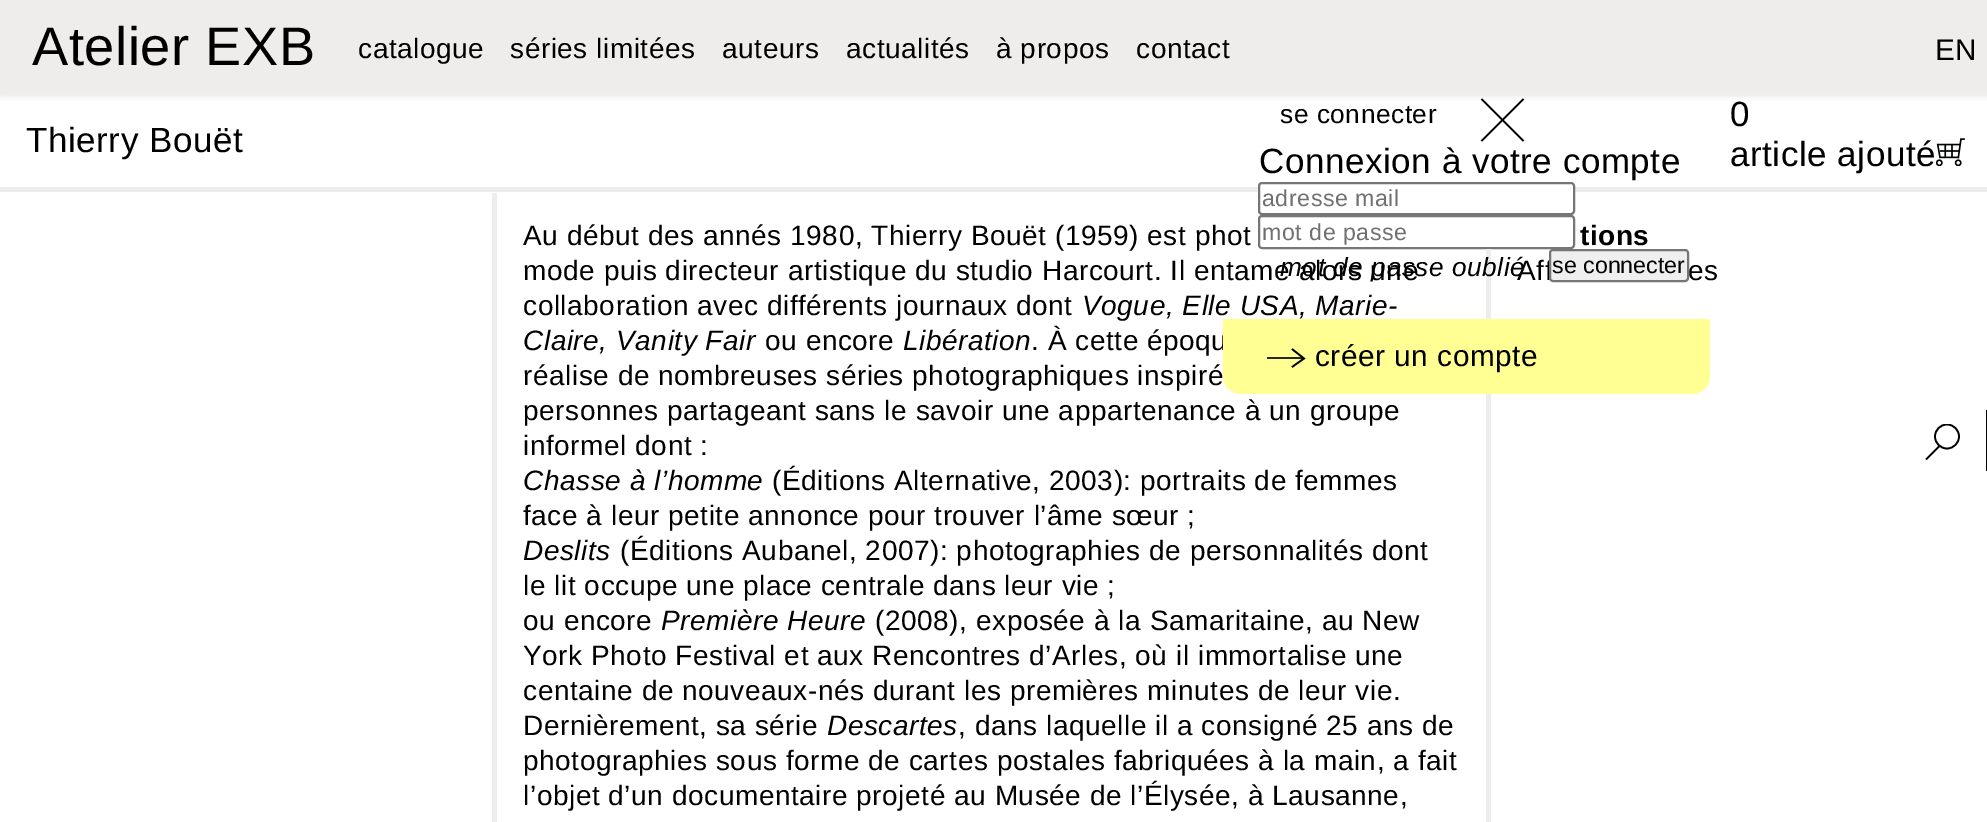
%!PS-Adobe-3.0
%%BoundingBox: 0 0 1987 822
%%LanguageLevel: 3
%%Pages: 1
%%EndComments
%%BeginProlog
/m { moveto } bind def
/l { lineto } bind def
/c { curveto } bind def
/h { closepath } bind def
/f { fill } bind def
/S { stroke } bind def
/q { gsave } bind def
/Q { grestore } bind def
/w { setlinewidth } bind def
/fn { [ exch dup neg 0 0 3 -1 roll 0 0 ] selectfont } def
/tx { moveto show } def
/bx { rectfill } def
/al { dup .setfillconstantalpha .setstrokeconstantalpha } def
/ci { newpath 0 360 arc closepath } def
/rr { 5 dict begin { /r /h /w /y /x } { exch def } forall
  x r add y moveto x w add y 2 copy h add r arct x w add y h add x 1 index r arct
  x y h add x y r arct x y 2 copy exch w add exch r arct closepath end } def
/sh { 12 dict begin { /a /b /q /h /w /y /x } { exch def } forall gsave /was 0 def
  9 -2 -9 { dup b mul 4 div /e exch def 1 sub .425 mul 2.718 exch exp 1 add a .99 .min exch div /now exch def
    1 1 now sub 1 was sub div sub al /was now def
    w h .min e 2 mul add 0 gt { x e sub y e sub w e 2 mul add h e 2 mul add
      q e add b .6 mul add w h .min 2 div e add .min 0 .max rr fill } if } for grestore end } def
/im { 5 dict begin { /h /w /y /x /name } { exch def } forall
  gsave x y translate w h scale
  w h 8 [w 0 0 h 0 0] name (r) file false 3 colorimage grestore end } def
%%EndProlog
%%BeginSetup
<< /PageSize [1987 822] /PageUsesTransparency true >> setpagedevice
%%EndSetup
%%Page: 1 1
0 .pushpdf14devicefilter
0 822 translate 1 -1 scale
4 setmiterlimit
1 setgray
0 0 1987 822 bx
0 setgray
0 2 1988 94 0 2.5 0.1 sh
0.937 0.925 0.925 setrgbcolor
0 0 1987 95 bx
/LiberationSans-Regular 54.25 fn
0 setgray
32 65 m 0.55 0 (Atelier EXB) ashow
/LiberationSans-Regular 28 fn
358 58 m 0.55 0 (catalogue) ashow
510 58 m 0.55 0 (séries limitées) ashow
722 58 m 0.55 0 (auteurs) ashow
846 58 m 0.55 0 (actualités) ashow
996 58 m 0.55 0 (à propos) ashow
1136 58 m 0.55 0 (contact) ashow
/LiberationSans-Regular 29.75 fn
1935 60 m 0.55 0 (EN) ashow
/LiberationSans-Regular 26.25 fn
1280 123 m 0.55 0 (se connecter) ashow
0.004 0.008 0.008 setrgbcolor
1.7 w
1523.5 99 m 1481.5 141 l 1481.5 99 m 1523.5 141 l S
/LiberationSans-Regular 35 fn
0 setgray
1259 173 m 0.55 0 (Connexion à votre compte) ashow
0.937 0.925 0.925 setrgbcolor
0 187 1987 5 bx
1 setgray
1259 183 315 31 3 rr q f Q
0.463 setgray
2 w
S
/LiberationSans-Regular 23.25 fn
0.439 setgray
1262 206 m 0.5 0 (adresse mail) ashow
0.463 setgray
1259 216 315 32 3 rr S
0.439 setgray
1262 240 m 0.5 0 (mot de passe) ashow
0.937 0.925 0.925 setrgbcolor
1486 249 5 573 bx
/LiberationSans-Regular 28 fn
0 setgray
523 280 m 0.55 0 (mode puis directeur artistique du studio Harcourt. Il entame alors une) ashow
1517 280 m 0.55 0 (Aff) ashow
/LiberationSans-Italic 26.25 fn
1280 276 m 0.55 0 (mot de passe oublié) ashow
0.937 setgray
1550 250 138 31 3 rr q f Q
0.463 setgray
S
/LiberationSans-Regular 23.25 fn
0 setgray
(se connecter) 1552 273 tx
/LiberationSans-Italic 28 fn
1082 315 m 0.55 0 (Vogue, Elle USA, Marie-) ashow
/LiberationSans-Regular 28 fn
1031 350 m 0.55 0 (. À cette époqu) ashow
1 1 0.58 setrgbcolor
1223 319 m 1710 319 l 1710 376 l 1710 386 1702 394 1692 394 c 1241 394 l 1231 394 1223 386 1223 376 c h f
0.153 0.157 0.094 setrgbcolor
1267 357 37 2 bx
0.004 0.008 0.008 setrgbcolor
1.7 w
1292 349 m 1304 358.5 l 1292 367 l S
/LiberationSans-Regular 29.75 fn
0 setgray
1315 366 m 0.55 0 (créer un compte) ashow
/LiberationSans-Regular 35 fn
1730 126 m 0.55 0 (0) ashow
1730 166 m 0.55 0 (article ajouté) ashow
(image0.raw) 1936 138 29 28 im
1986 410 1 61 bx
q
1925 424 35 36 rectclip
0.004 0.008 0.008 setrgbcolor
1947 436.5 12 ci S
Q
0.004 0.008 0.008 setrgbcolor
1939.5 446 m 1926 459.5 l S
0 setgray
26 152 m 0.55 0 (Thierry Bouët) ashow
0.937 0.925 0.925 setrgbcolor
492 193 5 629 bx
/LiberationSans-Regular 28 fn
0 setgray
523 245 m 0.55 0 (Au début des annés 1980, Thierry Bouët \(1959\) est phot) ashow
523 315 m 0.55 0 (collaboration avec différents journaux dont) ashow
/LiberationSans-Italic 28 fn
523 350 m 0.55 0 (Claire, Vanity Fair) ashow
/LiberationSans-Regular 28 fn
765 350 m 0.55 0 (ou encore) ashow
/LiberationSans-Italic 28 fn
903 350 m 0.55 0 (Libération) ashow
/LiberationSans-Regular 28 fn
523 385 m 0.55 0 (réalise de nombreuses séries photographiques inspiré) ashow
523 420 m 0.55 0 (personnes partageant sans le savoir une appartenance à un groupe) ashow
523 455 m 0.55 0 (informel dont :) ashow
/LiberationSans-Italic 28 fn
523 490 m 0.55 0 (Chasse à l’homme) ashow
/LiberationSans-Regular 28 fn
772 490 m 0.55 0 (\(Éditions Alternative, 2003\): portraits de femmes) ashow
523 525 m 0.55 0 (face à leur petite annonce pour trouver l’âme sœur ;) ashow
/LiberationSans-Italic 28 fn
523 560 m 0.55 0 (Deslits) ashow
/LiberationSans-Regular 28 fn
620 560 m 0.55 0 (\(Éditions Aubanel, 2007\): photographies de personnalités dont) ashow
523 595 m 0.55 0 (le lit occupe une place centrale dans leur vie ;) ashow
523 630 m 0.55 0 (ou encore) ashow
/LiberationSans-Italic 28 fn
661 630 m 0.55 0 (Première Heure) ashow
/LiberationSans-Regular 28 fn
875 630 m 0.55 0 (\(2008\), exposée à la Samaritaine, au New) ashow
523 665 m 0.55 0 (York Photo Festival et aux Rencontres d’Arles, où il immortalise une) ashow
523 700 m 0.55 0 (centaine de nouveaux-nés durant les premières minutes de leur vie.) ashow
523 735 m 0.55 0 (Dernièrement, sa série) ashow
/LiberationSans-Italic 28 fn
827 735 m 0.55 0 (Descartes) ashow
/LiberationSans-Regular 28 fn
958 735 m 0.55 0 (, dans laquelle il a consigné 25 ans de) ashow
523 770 m 0.55 0 (photographies sous forme de cartes postales fabriquées à la main, a fait) ashow
523 805 m 0.55 0 (l’objet d’un documentaire projeté au Musée de l’Élysée, à Lausanne,) ashow
/LiberationSans-Bold 28 fn
1580 245 m 0.55 0 (tions) ashow
/LiberationSans-Regular 28 fn
1688 280 m 0.55 0 (es) ashow
.poppdf14devicefilter showpage
%%EOF
